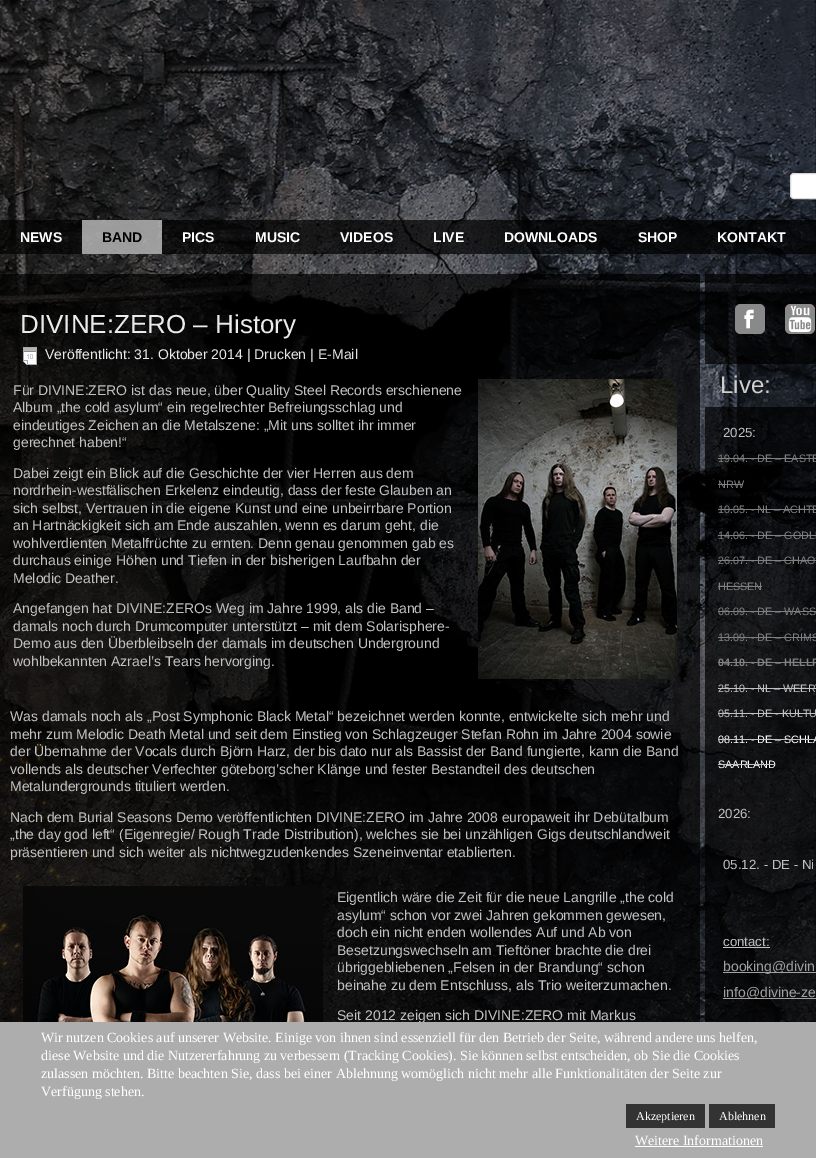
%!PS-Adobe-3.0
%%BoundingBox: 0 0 816 1158
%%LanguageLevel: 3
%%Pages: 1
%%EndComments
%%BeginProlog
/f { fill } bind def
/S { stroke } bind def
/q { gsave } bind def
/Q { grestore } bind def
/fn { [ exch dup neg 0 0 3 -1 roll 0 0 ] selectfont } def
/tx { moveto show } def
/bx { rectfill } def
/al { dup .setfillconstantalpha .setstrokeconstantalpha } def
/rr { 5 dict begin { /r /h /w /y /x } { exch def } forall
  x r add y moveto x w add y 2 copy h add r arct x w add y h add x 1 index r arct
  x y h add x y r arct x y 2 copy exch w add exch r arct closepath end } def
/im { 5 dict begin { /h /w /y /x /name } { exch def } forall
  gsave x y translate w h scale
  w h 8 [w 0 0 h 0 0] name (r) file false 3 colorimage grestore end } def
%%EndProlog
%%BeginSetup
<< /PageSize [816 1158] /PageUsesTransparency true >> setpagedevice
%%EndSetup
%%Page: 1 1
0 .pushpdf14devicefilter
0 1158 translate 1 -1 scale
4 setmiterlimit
1 setgray
0 0 816 1158 bx
(image0.raw) 0 0 816 1022 im
790.5 173.5 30 25 3.5 rr q f Q
0.839 setgray
S
0.7 al
0 setgray
0 220 816 34 bx
/LiberationSans-Bold 14 fn
1 al
1 setgray
(NEWS) 20 242 tx
0.6 al
82 220 80 34 bx
1 al
0 setgray
(BAND) 102 242 tx
1 setgray
(PICS) 182 242 tx
(MUSIC) 255 242 tx
(VIDEOS) 340 242 tx
(LIVE) 433 242 tx
(DOWNLOADS) 504 242 tx
(SHOP) 638 242 tx
(KONTAKT) 717 242 tx
0.7 al
0 setgray
0 274 700 20 bx
0 294 700 728 bx
/LiberationSans-Regular 26 fn
1 al
0.922 setgray
(DIVINE:ZERO – History) 20 333 tx
(image1.raw) 23 347 14 18 im
/LiberationSans-Regular 14 fn
(Veröffentlicht: 31. Oktober 2014 |) 45 359 tx
0.89 setgray
(Drucken) 254 359 tx
0.922 setgray
(|) 310 359 tx
0.89 setgray
(E-Mail) 318 359 tx
0.761 setgray
(Für DIVINE:ZERO ist das neue, über Quality Steel Records erschienene) 13 395 tx
(Album „the cold asylum“ ein regelrechter Befreiungsschlag und) 13 412 tx
(eindeutiges Zeichen an die Metalszene: „Mit uns solltet ihr immer) 13 430 tx
(gerechnet haben!“) 13 447 tx
(Dabei zeigt ein Blick auf die Geschichte der vier Herren aus dem) 13 478 tx
(nordrhein-westfälischen Erkelenz eindeutig, dass der feste Glauben an) 13 495 tx
(sich selbst, Vertrauen in die eigene Kunst und eine unbeirrbare Portion) 13 513 tx
(an Hartnäckigkeit sich am Ende auszahlen, wenn es darum geht, die) 13 530 tx
(wohlverdienten Metalfrüchte zu ernten. Denn genau genommen gab es) 13 548 tx
(durchaus einige Höhen und Tiefen in der bisherigen Laufbahn der) 13 565 tx
(Melodic Deather.) 13 583 tx
(Angefangen hat DIVINE:ZEROs Weg im Jahre 1999, als die Band –) 13 613 tx
(damals noch durch Drumcomputer unterstützt – mit dem Solarisphere-) 13 631 tx
(Demo aus den Überbleibseln der damals im deutschen Underground) 13 648 tx
(wohlbekannten Azrael’s Tears hervorging.) 13 666 tx
(image2.raw) 478 379 199 300 im
(Was damals noch als „Post Symphonic Black Metal“ bezeichnet werden konnte, entwickelte sich mehr und) 10 721 tx
(mehr zum Melodic Death Metal und seit dem Einstieg von Schlagzeuger Stefan Rohn im Jahre 2004 sowie) 10 739 tx
(der Übernahme der Vocals durch Björn Harz, der bis dato nur als Bassist der Band fungierte, kann die Band) 10 756 tx
(vollends als deutscher Verfechter göteborg’scher Klänge und fester Bestandteil des deutschen) 10 774 tx
(Metalundergrounds tituliert werden.) 10 791 tx
(Nach dem Burial Seasons Demo veröffentlichten DIVINE:ZERO im Jahre 2008 europaweit ihr Debütalbum) 10 822 tx
(„the day god left“ \(Eigenregie/ Rough Trade Distribution\), welches sie bei unzähligen Gigs deutschlandweit) 10 839 tx
(präsentieren und sich weiter als nichtwegzudenkendes Szeneinventar etablierten.) 10 857 tx
(image3.raw) 23 886 300 136 im
(Eigentlich wäre die Zeit für die neue Langrille „the cold) 337 902 tx
(asylum“ schon vor zwei Jahren gekommen gewesen,) 337 920 tx
(doch ein nicht enden wollendes Auf und Ab von) 337 937 tx
(Besetzungswechseln am Tieftöner brachte die drei) 337 955 tx
(übriggebliebenen „Felsen in der Brandung“ schon) 337 972 tx
(beinahe zu dem Entschluss, als Trio weiterzumachen.) 337 990 tx
(Seit 2012 zeigen sich DIVINE:ZERO mit Markus) 337 1020 tx
0.7 al
0 setgray
705 274 111 90 bx
1 al
(image4.raw) 735 304 30 30 im
(image5.raw) 735 304 30 30 im
(image6.raw) 785 304 30 30 im
(image7.raw) 785 304 30 30 im
/LiberationSans-Regular 24 fn
0.812 setgray
(Live:) 720 393 tx
0.7 al
0 setgray
705 407 111 615 bx
/LiberationSans-Regular 13.25 fn
1 al
0.761 setgray
(2025:) 723 437 tx
/LiberationSans-Regular 10.75 fn
0.502 setgray
(19.04. - DE – EASTE) 718 462 tx
718 458 98 1 bx
(NRW) 718 488 tx
718 484 25 1 bx
(10.05. - NL – ACHTE) 718 513 tx
718 509 98 1 bx
(14.06. - DE – GODLE) 718 539 tx
718 535 98 1 bx
(26.07. - DE – CHAOS) 718 564 tx
718 560 98 1 bx
(HESSEN) 718 590 tx
718 586 44 1 bx
(06.09. - DE – WASS) 718 615 tx
718 611 98 1 bx
(13.09. - DE – CRIMS) 718 641 tx
718 637 98 1 bx
/LiberationSans-Bold 10.75 fn
(04.10. - DE – HELLF) 718 666 tx
718 662 98 1 bx
/LiberationSans-Regular 10.75 fn
0.761 setgray
(25.10. - NL – WEERT) 718 692 tx
718 688 98 1 bx
(05.11. - DE - KULTU) 718 717 tx
718 713 98 1 bx
1 setgray
(08.11. - DE – SCHLA) 718 743 tx
0.761 setgray
718 739 98 1 bx
1 setgray
(SAARLAND) 718 768 tx
0.761 setgray
718 764 57 1 bx
/LiberationSans-Regular 13.25 fn
(2026:) 718 818 tx
(05.12. - DE - Ni) 723 869 tx
(contact:) 723 946 tx
723 947 47 1 bx
0.631 setgray
723 972 93 1 bx
/LiberationSans-Regular 14 fn
(booking@divin) 723 971 tx
723 998 93 1 bx
(info@divine-ze) 723 997 tx
0.678 setgray
0 1022 816 136 bx
/LiberationSerif-Regular 14 fn
1 setgray
(Wir nutzen Cookies auf unserer Website. Einige von ihnen sind essenziell für den Betrieb der Seite, während andere uns helfen,) 41 1042 tx
(diese Website und die Nutzererfahrung zu verbessern \(Tracking Cookies\). Sie können selbst entscheiden, ob Sie die Cookies) 41 1060 tx
(zulassen möchten. Bitte beachten Sie, dass bei einer Ablehnung womöglich nicht mehr alle Funktionalitäten der Seite zur) 41 1078 tx
(Verfügung stehen.) 41 1096 tx
0.2 setgray
626 1104 79 24 bx
/LiberationSerif-Regular 12 fn
1 setgray
(Akzeptieren) 636 1120 tx
0.2 setgray
709 1104 66 24 bx
1 setgray
(Ablehnen) 719 1120 tx
/LiberationSerif-Regular 14 fn
(Weitere Informationen) 635 1145 tx
635 1146 128 1 bx
.poppdf14devicefilter showpage
%%EOF
